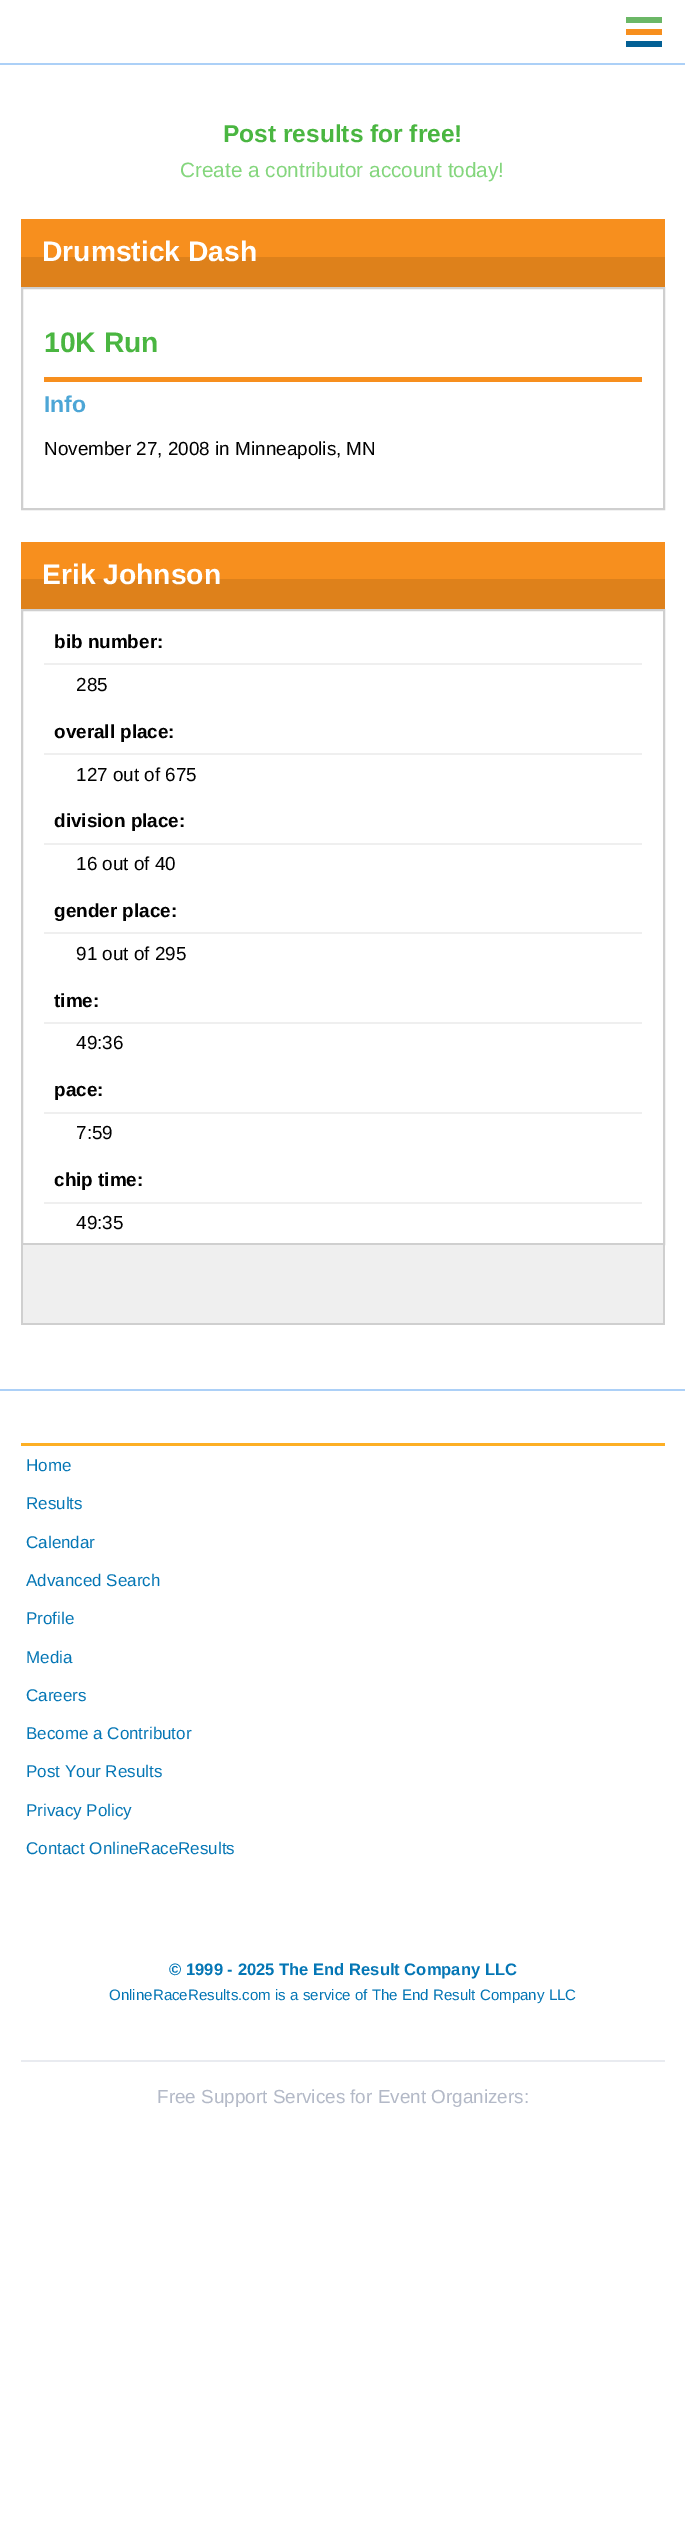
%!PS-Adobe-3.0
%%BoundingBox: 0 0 685 2522
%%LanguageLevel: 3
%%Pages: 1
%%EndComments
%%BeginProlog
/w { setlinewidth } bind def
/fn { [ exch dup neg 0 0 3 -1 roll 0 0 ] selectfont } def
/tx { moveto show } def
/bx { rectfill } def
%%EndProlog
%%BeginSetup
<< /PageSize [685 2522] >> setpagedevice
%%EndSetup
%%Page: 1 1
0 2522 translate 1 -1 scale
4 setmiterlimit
1 setgray
0 0 685 2522 bx
0.675 0.816 0.969 setrgbcolor
0 63 685 2 bx
0.42 0.718 0.4 setrgbcolor
626 17 36 6 bx
0.969 0.561 0.118 setrgbcolor
626 29 36 6 bx
0.012 0.376 0.584 setrgbcolor
626 41 36 6 bx
/LiberationSans-Bold 24.5 fn
0.29 0.714 0.255 setrgbcolor
(Post results for free!) 223 142 tx
/LiberationSans-Regular 20.75 fn
0.518 0.839 0.49 setrgbcolor
(Create a contributor account today!) 180 177 tx
0.969 0.561 0.118 setrgbcolor
21 219 644 38 bx
0.871 0.506 0.106 setrgbcolor
21 257 644 30 bx
/LiberationSans-Bold 28.25 fn
1 setgray
(Drumstick Dash) 42 261 tx
0.812 setgray
2 w
22 288 642 221 rectstroke
0.29 0.714 0.255 setrgbcolor
(10K Run) 44 352 tx
0.969 0.561 0.118 setrgbcolor
44 377 598 5 bx
/LiberationSans-Bold 23 fn
0.302 0.651 0.839 setrgbcolor
(Info) 44 412 tx
/LiberationSans-Regular 18.9 fn
0 setgray
(November 27, 2008 in Minneapolis, MN) 44 455 tx
0.969 0.561 0.118 setrgbcolor
21 542 644 37 bx
0.871 0.506 0.106 setrgbcolor
21 579 644 30 bx
/LiberationSans-Bold 28.25 fn
1 setgray
(Erik Johnson) 42 584 tx
0.812 setgray
22 610 642 634 rectstroke
0.937 setgray
44 663 598 2 bx
/LiberationSans-Bold 18.9 fn
0 setgray
(bib number:) 54 648 tx
/LiberationSans-Regular 18.9 fn
(285) 76 691 tx
0.937 setgray
44 753 598 2 bx
/LiberationSans-Bold 18.9 fn
0 setgray
(overall place:) 54 738 tx
/LiberationSans-Regular 18.9 fn
(127 out of 675) 76 781 tx
0.937 setgray
44 843 598 2 bx
/LiberationSans-Bold 18.9 fn
0 setgray
(division place:) 54 827 tx
/LiberationSans-Regular 18.9 fn
(16 out of 40) 76 870 tx
0.937 setgray
44 932 598 2 bx
/LiberationSans-Bold 18.9 fn
0 setgray
(gender place:) 54 917 tx
/LiberationSans-Regular 18.9 fn
(91 out of 295) 76 960 tx
0.937 setgray
44 1022 598 2 bx
/LiberationSans-Bold 18.9 fn
0 setgray
(time:) 54 1007 tx
/LiberationSans-Regular 18.9 fn
(49:36) 76 1049 tx
0.937 setgray
44 1112 598 2 bx
/LiberationSans-Bold 18.9 fn
0 setgray
(pace:) 54 1096 tx
/LiberationSans-Regular 18.9 fn
(7:59) 76 1139 tx
0.937 setgray
44 1202 598 2 bx
/LiberationSans-Bold 18.9 fn
0 setgray
(chip time:) 54 1186 tx
/LiberationSans-Regular 18.9 fn
(49:35) 76 1229 tx
0.937 setgray
23 1245 640 78 bx
0.812 setgray
663 1245 2 80 bx
21 1323 644 2 bx
21 1245 2 80 bx
0.675 0.816 0.969 setrgbcolor
0 1389 685 2 bx
0.992 0.686 0.141 setrgbcolor
21 1443 644 3 bx
/LiberationSans-Regular 17 fn
0.016 0.463 0.71 setrgbcolor
(Home) 26 1471 tx
(Results) 26 1509 tx
(Calendar) 26 1548 tx
(Advanced Search) 26 1586 tx
(Profile) 26 1624 tx
(Media) 26 1663 tx
(Careers) 26 1701 tx
(Become a Contributor) 26 1739 tx
(Post Your Results) 26 1777 tx
(Privacy Policy) 26 1816 tx
(Contact OnlineRaceResults) 26 1854 tx
/LiberationSans-Bold 16.6 fn
(© 1999 - 2025 The End Result Company LLC) 169 1975 tx
/LiberationSans-Regular 15.1 fn
(OnlineRaceResults.com is a service of The End Result Company LLC) 109 2000 tx
0.914 0.922 0.941 setrgbcolor
21 2060 644 2 bx
/LiberationSans-Regular 18.9 fn
0.702 0.725 0.78 setrgbcolor
(Free Support Services for Event Organizers:) 157 2103 tx
showpage
%%EOF
